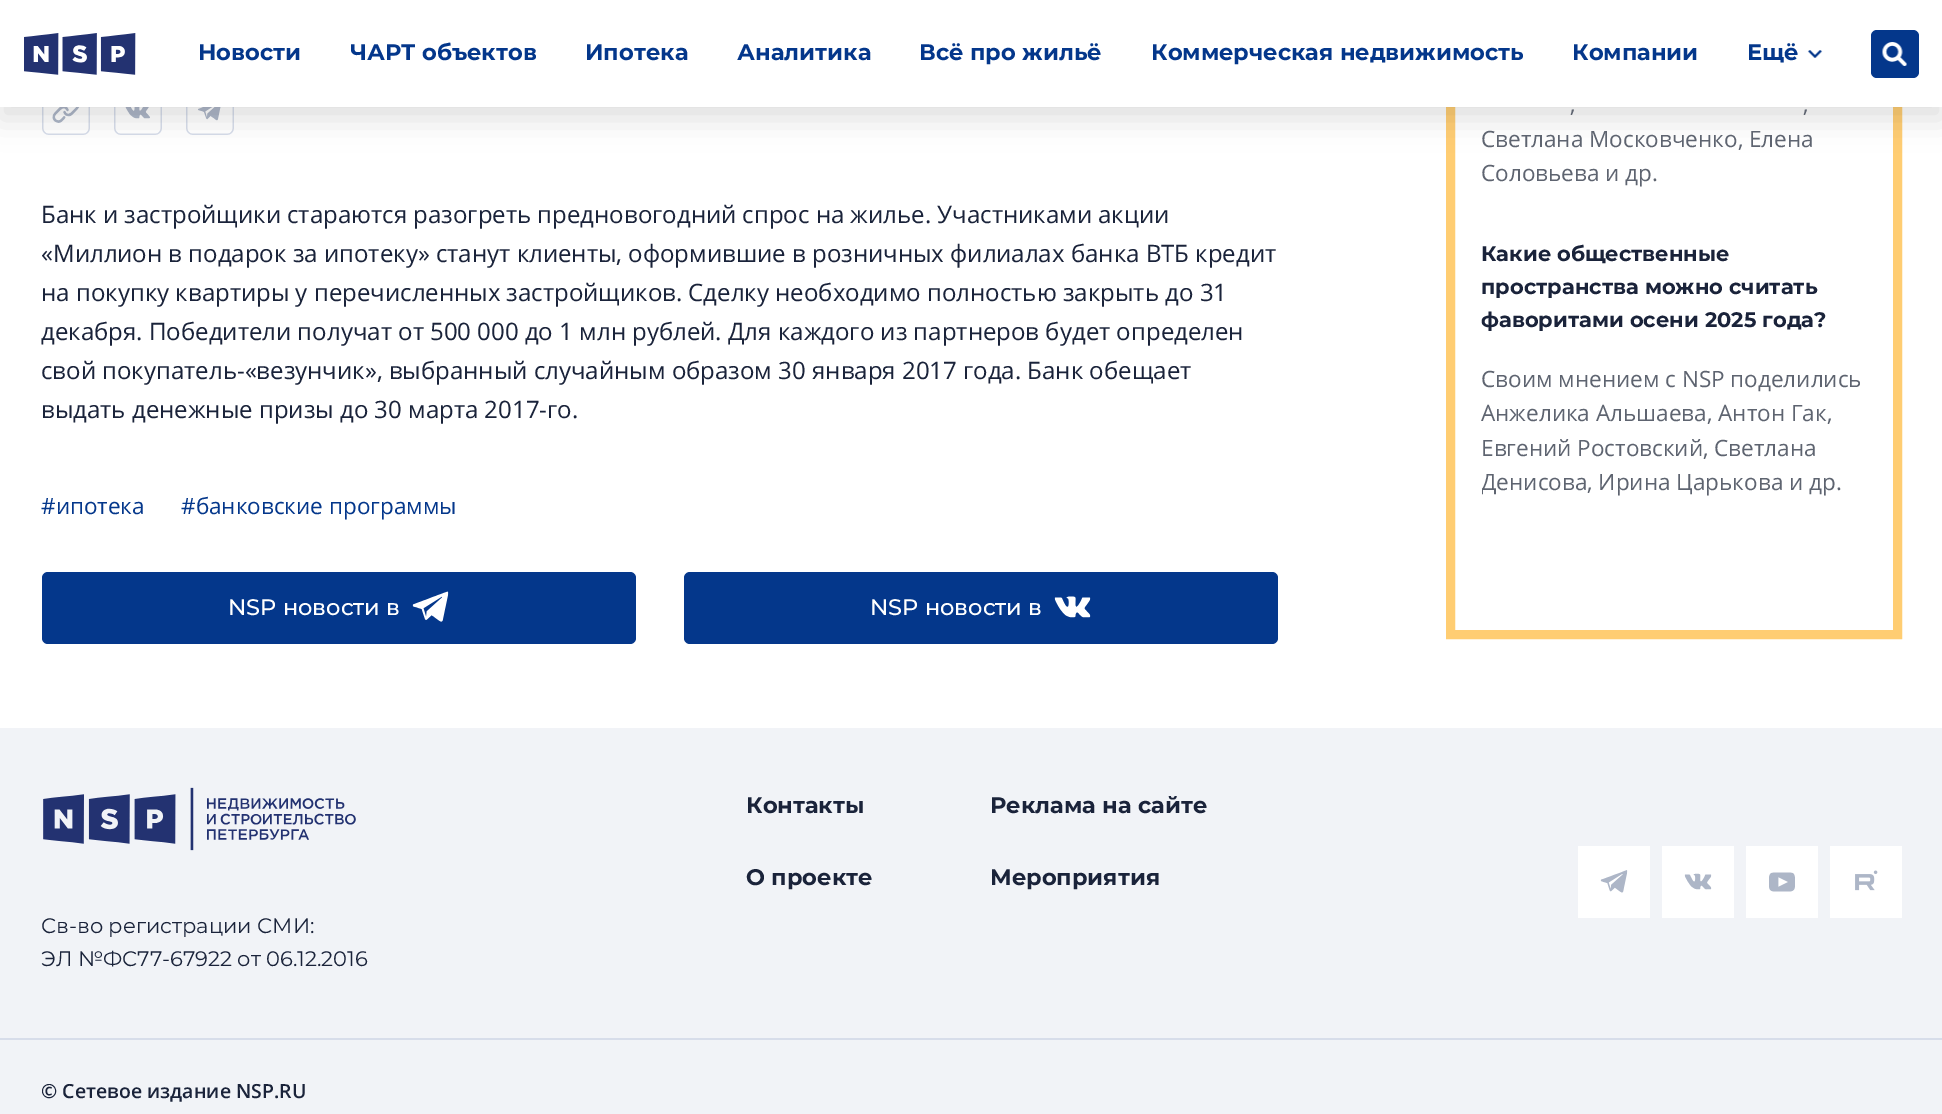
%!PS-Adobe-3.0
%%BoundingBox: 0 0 1942 1114
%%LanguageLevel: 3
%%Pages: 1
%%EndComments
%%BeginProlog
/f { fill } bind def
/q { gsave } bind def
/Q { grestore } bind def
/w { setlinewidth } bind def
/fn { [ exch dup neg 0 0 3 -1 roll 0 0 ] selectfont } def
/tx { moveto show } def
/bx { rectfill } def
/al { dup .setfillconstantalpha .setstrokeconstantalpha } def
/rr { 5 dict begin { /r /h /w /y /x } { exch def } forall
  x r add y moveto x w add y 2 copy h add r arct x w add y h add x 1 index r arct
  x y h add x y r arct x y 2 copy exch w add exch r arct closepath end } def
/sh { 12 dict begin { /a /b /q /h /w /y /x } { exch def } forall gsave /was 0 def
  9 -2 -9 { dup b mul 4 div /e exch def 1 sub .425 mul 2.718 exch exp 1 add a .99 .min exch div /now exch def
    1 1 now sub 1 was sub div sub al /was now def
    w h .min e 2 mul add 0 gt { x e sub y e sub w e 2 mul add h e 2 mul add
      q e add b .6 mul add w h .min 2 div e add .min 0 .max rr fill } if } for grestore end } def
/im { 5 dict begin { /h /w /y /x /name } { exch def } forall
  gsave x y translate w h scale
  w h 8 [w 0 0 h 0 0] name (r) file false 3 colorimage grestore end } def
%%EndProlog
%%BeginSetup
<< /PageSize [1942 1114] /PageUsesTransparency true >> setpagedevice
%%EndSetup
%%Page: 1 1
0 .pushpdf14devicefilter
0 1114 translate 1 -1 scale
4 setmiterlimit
1 setgray
0 0 1942 1114 bx
(image3.raw) 42 107 48 28 im
(image4.raw) 114 107 48 28 im
(image5.raw) 186 107 48 28 im
1 0.804 0.447 setrgbcolor
9 w
1450.5 -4.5 447 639 rectstroke
0 setgray
0 12 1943 107 0 15 0.12 sh
1 setgray
0 0 1942 107 bx
(image0.raw) 24 33 112 42 im
/Montserrat-Bold 22.5 fn
0.016 0.216 0.545 setrgbcolor
(Новости) 198 60 tx
(ЧАРТ объектов) 350 60 tx
(Ипотека) 585 60 tx
(Аналитика) 737 60 tx
(Всё про жильё) 919 60 tx
(Коммерческая недвижимость) 1151 60 tx
(Компании) 1572 60 tx
(Ещё) 1747 60 tx
(image1.raw) 1807 50 16 8 im
1871 30 48 48 6 rr f
(image2.raw) 1882 42 25 24 im
/OpenSans-Regular 24 fn
0.102 0.137 0.227 setrgbcolor
(Банк и застройщики стараются разогреть предновогодний спрос на жилье. Участниками акции) 41 223 tx
(«Миллион в подарок за ипотеку» станут клиенты, оформившие в розничных филиалах банка ВТБ кредит) 41 262 tx
(на покупку квартиры у перечисленных застройщиков. Сделку необходимо полностью закрыть до 31) 41 301 tx
(декабря. Победители получат от 500 000 до 1 млн рублей. Для каждого из партнеров будет определен) 41 340 tx
(свой покупатель-«везунчик», выбранный случайным образом 30 января 2017 года. Банк обещает) 41 379 tx
(выдать денежные призы до 30 марта 2017-го.) 41 418 tx
/OpenSans-Regular 22.5 fn
0.016 0.216 0.545 setrgbcolor
(#ипотека) 41 514 tx
(#банковские программы) 181 514 tx
42 572 594 72 6 rr f
/Montserrat-Medium 22.5 fn
1 setgray
(NSP новости в) 228 615 tx
(image6.raw) 412 591 37 31 im
0.016 0.216 0.545 setrgbcolor
684 572 594 72 6 rr f
1 setgray
(NSP новости в) 870 615 tx
(image7.raw) 1054 596 37 22 im
/OpenSans-Regular 22.5 fn
0.369 0.392 0.439 setrgbcolor
(,) 1570 112 tx
(,) 1803 112 tx
(Светлана Московченко, Елена) 1481 147 tx
(Соловьева и др.) 1481 181 tx
/Montserrat-Bold 21 fn
0.102 0.137 0.227 setrgbcolor
(Какие общественные) 1481 261 tx
(пространства можно считать) 1481 294 tx
(фаворитами осени 2025 года?) 1481 327 tx
/OpenSans-Regular 22.5 fn
0.369 0.392 0.439 setrgbcolor
(Своим мнением с NSP поделились) 1481 387 tx
(Анжелика Альшаева, Антон Гак,) 1481 421 tx
(Евгений Ростовский, Светлана) 1481 456 tx
q
1482 239 384 261 rectclip
(Денисова, Ирина Царькова и др.) 1481 490 tx
Q
0.945 0.953 0.969 setrgbcolor
0 728 1942 386 bx
0.843 0.867 0.918 setrgbcolor
0 1038 1942 2 bx
/Montserrat-Bold 22.5 fn
0.102 0.137 0.227 setrgbcolor
(Контакты) 746 813 tx
(Реклама на сайте) 990 813 tx
(О проекте) 746 885 tx
(Мероприятия) 990 885 tx
1 setgray
1578 846 72 72 bx
(image8.raw) 1600 870 28 23 im
1662 846 72 72 bx
(image9.raw) 1684 873 28 17 im
1746 846 72 72 bx
(image10.raw) 1769 872 26 20 im
1830 846 72 72 bx
(image11.raw) 1855 870 23 21 im
(image12.raw) 43 787 313 64 im
/Montserrat-Regular 21 fn
0.102 0.137 0.227 setrgbcolor
(Св-во регистрации СМИ:) 41 933 tx
(ЭЛ №ФС77-67922 от 06.12.2016) 41 966 tx
/OpenSans-SemiBold 19.5 fn
(© Сетевое издание NSP.RU) 41 1098 tx
.poppdf14devicefilter showpage
%%EOF
